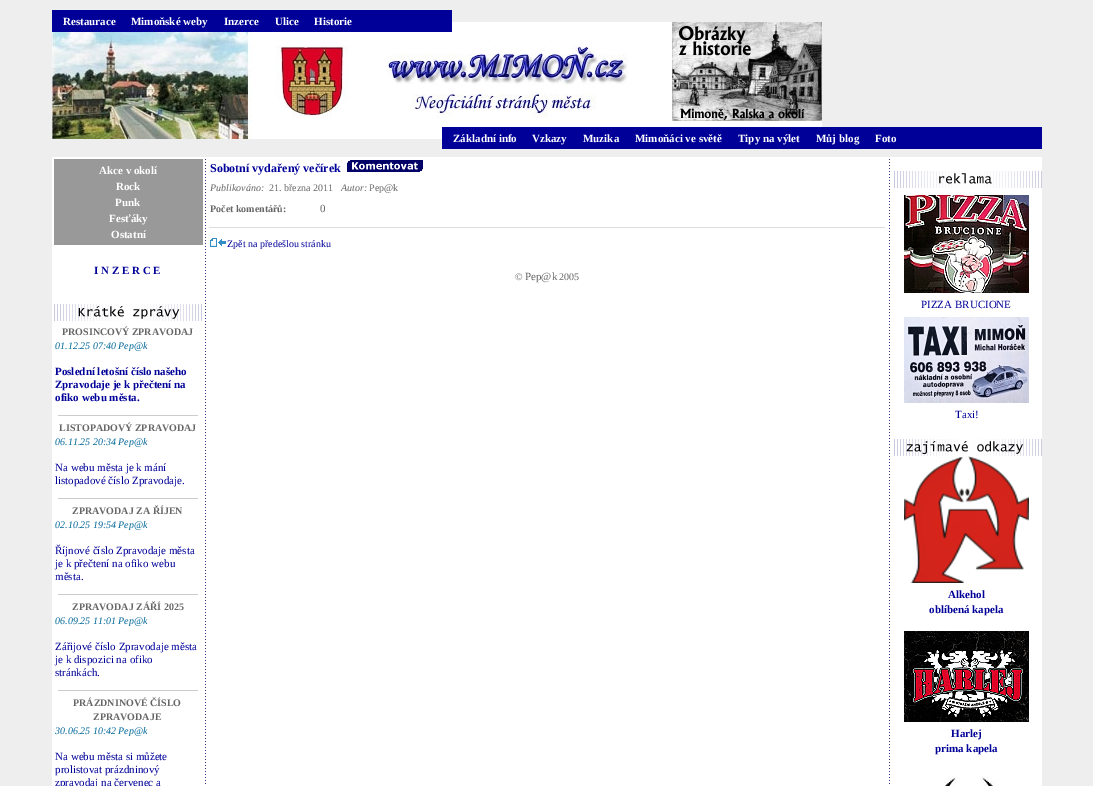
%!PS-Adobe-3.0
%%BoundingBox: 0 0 1093 786
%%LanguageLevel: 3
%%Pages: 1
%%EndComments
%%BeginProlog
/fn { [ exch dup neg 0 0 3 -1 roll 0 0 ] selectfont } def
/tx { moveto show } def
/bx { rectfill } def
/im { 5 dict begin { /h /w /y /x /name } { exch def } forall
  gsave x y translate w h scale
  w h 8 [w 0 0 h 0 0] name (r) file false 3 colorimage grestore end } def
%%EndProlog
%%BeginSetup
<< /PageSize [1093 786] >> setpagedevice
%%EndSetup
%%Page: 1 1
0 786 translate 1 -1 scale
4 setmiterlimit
0.933 setgray
0 0 1093 786 bx
(image0.raw) 52 22 770 117 im
0 0 0.6 setrgbcolor
52 10 400 22 bx
/LiberationSerif-Bold 11 fn
1 setgray
(Restaurace) 63 25 tx
(Mimoňské weby) 131 25 tx
(Inzerce) 224 25 tx
(Ulice) 275 25 tx
(Historie) 314 25 tx
0 0 0.6 setrgbcolor
442 127 600 22 bx
1 setgray
(Základní info) 453 142 tx
(Vzkazy) 532 142 tx
(Muzika) 583 142 tx
(Mimoňáci ve světě) 635 142 tx
(Tipy na výlet) 738 142 tx
(Můj blog) 816 142 tx
(Foto) 875 142 tx
52 157 990 629 bx
0.6 setgray
54 159 149 86 bx
1 setgray
(Akce v okolí) 99 174 tx
(Rock) 116 190 tx
(Punk) 115 206 tx
(Fesťáky) 109 222 tx
(Ostatní) 111 238 tx
0 0 0.6 setrgbcolor
(I N Z E R C E) 94 274 tx
(image1.raw) 54 304 148 17 im
/LiberationSerif-Bold 10 fn
0.4 setgray
(PROSINCOVÝ ZPRAVODAJ) 62 335 tx
/LiberationSerif-Italic 10 fn
0 0.4 0.6 setrgbcolor
(01.12.25 07:40 Pep@k) 55 349 tx
/LiberationSerif-Bold 11 fn
0 0 0.6 setrgbcolor
(Poslední letošní číslo našeho) 55 375 tx
(Zpravodaje je k přečtení na) 55 388 tx
(ofiko webu města.) 55 401 tx
0.8 setgray
58 415 140 1 bx
/LiberationSerif-Bold 10 fn
0.4 setgray
(LISTOPADOVÝ ZPRAVODAJ) 59 431 tx
/LiberationSerif-Italic 10 fn
0 0.4 0.6 setrgbcolor
(06.11.25 20:34 Pep@k) 55 445 tx
/LiberationSerif-Regular 11 fn
0 0 0.6 setrgbcolor
(Na webu města je k mání) 55 471 tx
(listopadové číslo Zpravodaje.) 55 484 tx
0.8 setgray
58 498 140 1 bx
/LiberationSerif-Bold 10 fn
0.4 setgray
(ZPRAVODAJ ZA ŘÍJEN) 72 514 tx
/LiberationSerif-Italic 10 fn
0 0.4 0.6 setrgbcolor
(02.10.25 19:54 Pep@k) 55 528 tx
/LiberationSerif-Regular 11 fn
0 0 0.6 setrgbcolor
(Říjnové číslo Zpravodaje města) 55 554 tx
(je k přečtení na ofiko webu) 55 567 tx
(města.) 55 580 tx
0.8 setgray
58 594 140 1 bx
/LiberationSerif-Bold 10 fn
0.4 setgray
(ZPRAVODAJ ZÁŘÍ 2025) 72 610 tx
/LiberationSerif-Italic 10 fn
0 0.4 0.6 setrgbcolor
(06.09.25 11:01 Pep@k) 55 624 tx
/LiberationSerif-Regular 11 fn
0 0 0.6 setrgbcolor
(Zářijové číslo Zpravodaje města) 55 650 tx
(je k dispozici na ofiko) 55 663 tx
(stránkách.) 55 676 tx
0.8 setgray
58 690 140 1 bx
/LiberationSerif-Bold 10 fn
0.4 setgray
(PRÁZDNINOVÉ ČÍSLO) 73 706 tx
(ZPRAVODAJE) 93 720 tx
/LiberationSerif-Italic 10 fn
0 0.4 0.6 setrgbcolor
(30.06.25 10:42 Pep@k) 55 734 tx
/LiberationSerif-Regular 11 fn
0 0 0.6 setrgbcolor
(Na webu města si můžete) 55 760 tx
(prolistovat prázdninový) 55 773 tx
(zpravodaj na červenec a) 55 786 tx
(image2.raw) 205 159 1 625 im
/LiberationSerif-Bold 12 fn
(Sobotní vydařený večírek) 210 172 tx
(image3.raw) 347 160 76 12 im
/LiberationSerif-Italic 10 fn
0.4 setgray
(Publikováno:) 210 191 tx
/LiberationSerif-Regular 10 fn
(21. března 2011) 269 191 tx
/LiberationSerif-Italic 10 fn
(Autor:) 341 191 tx
/LiberationSerif-Regular 10 fn
(Pep@k) 369 191 tx
/LiberationSerif-Bold 10 fn
(Počet komentářů:) 210 212 tx
/LiberationSerif-Regular 11 fn
(0) 320 212 tx
0.867 setgray
209 227 676 1 bx
(image4.raw) 210 238 16 9 im
/LiberationSerif-Regular 10 fn
0 0 0.6 setrgbcolor
(Zpět na předešlou stránku) 227 247 tx
0.4 setgray
(©) 515 280 tx
/LiberationSerif-Regular 11 fn
(Pep@k) 525 280 tx
/LiberationSerif-Regular 10 fn
(2005) 559 280 tx
(image2.raw) 889 159 1 625 im
(image5.raw) 894 171 148 17 im
(image6.raw) 904 195 125 98 im
/LiberationSerif-Regular 11 fn
0 0 0.6 setrgbcolor
(PIZZA BRUCIONE) 921 308 tx
(image7.raw) 904 317 125 86 im
(Taxi!) 955 418 tx
(image8.raw) 894 439 148 17 im
(image9.raw) 904 456 125 127 im
/LiberationSerif-Bold 11 fn
(Alkehol) 948 598 tx
(oblíbená kapela) 929 613 tx
(image10.raw) 904 631 125 91 im
(Harlej) 951 737 tx
(prima kapela) 935 752 tx
(image11.raw) 944 776 51 10 im
showpage
%%EOF
